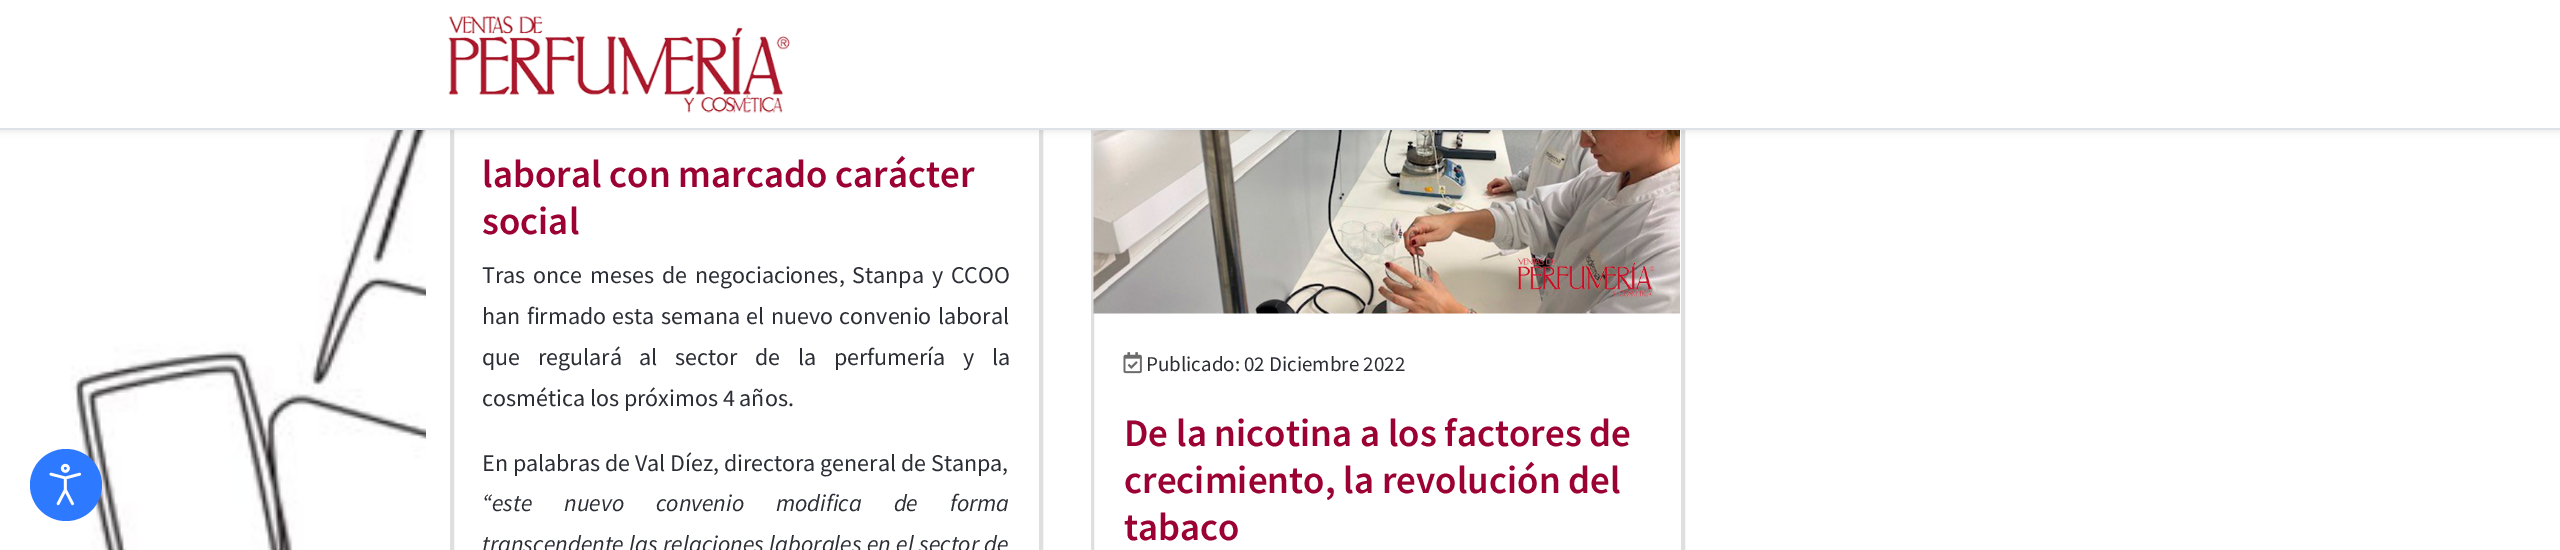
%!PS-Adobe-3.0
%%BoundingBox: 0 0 2560 550
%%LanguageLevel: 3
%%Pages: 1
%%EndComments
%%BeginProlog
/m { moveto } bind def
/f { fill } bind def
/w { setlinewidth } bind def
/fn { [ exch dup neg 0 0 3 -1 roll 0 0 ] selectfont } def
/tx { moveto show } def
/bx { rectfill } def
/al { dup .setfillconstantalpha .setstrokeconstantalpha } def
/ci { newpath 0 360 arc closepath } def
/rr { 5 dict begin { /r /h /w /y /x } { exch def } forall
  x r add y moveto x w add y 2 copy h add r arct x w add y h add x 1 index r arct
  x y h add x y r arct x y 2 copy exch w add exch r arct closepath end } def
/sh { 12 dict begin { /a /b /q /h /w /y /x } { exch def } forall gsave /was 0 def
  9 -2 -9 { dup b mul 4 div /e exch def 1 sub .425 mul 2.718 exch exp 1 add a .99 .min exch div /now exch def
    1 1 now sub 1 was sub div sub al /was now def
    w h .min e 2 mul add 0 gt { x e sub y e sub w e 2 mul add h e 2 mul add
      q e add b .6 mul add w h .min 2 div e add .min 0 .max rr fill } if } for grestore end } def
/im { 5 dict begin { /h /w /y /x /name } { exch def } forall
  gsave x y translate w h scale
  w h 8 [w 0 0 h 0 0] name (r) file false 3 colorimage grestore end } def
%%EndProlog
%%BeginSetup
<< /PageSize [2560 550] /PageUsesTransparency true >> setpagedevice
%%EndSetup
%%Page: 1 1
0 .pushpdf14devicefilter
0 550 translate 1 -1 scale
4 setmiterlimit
1 setgray
0 0 2560 550 bx
(image2.raw) 70 130 356 420 im
0.176 0.475 1 setrgbcolor
66 485 36 ci f
(image0.raw) 49 463 32 43 im
0.875 setgray
2 w
451 -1 591 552 rectstroke
453 -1 587 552 rectstroke
1092 -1 592 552 rectstroke
1093 -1 589 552 rectstroke
(image3.raw) 1093 130 587 184 im
0 setgray
0 3 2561 129 0 3 0.07 sh
1 setgray
0 0 2560 128 bx
0.871 0.886 0.902 setrgbcolor
0 128 2560 2 bx
(image1.raw) 448 15 342 98 im
/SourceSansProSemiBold-SemiBold 39 fn
0.612 0.004 0.204 setrgbcolor
(laboral con marcado carácter) 482 187 tx
(social) 482 234 tx
/SourceSansPro-Regular 24 fn
0.173 0.18 0.212 setrgbcolor
482 283 m 3 0 32 (Tras once meses de negociaciones, Stanpa y CCOO) widthshow
482 324 m 1.5 0 32 (han firmado esta semana el nuevo convenio laboral) widthshow
482 365 m 12.75 0 32 (que regulará al sector de la perfumería y la) widthshow
(cosmética los próximos 4 años.) 482 406 tx
(En palabras de Val Díez, directora general de Stanpa,) 482 471 tx
/SourceSansPro-Italic 24 fn
482 511 m 27 0 32 (“este nuevo convenio modifica de forma) widthshow
482 552 m 0.5 0 32 (transcendente las relaciones laborales en el sector de) widthshow
(image4.raw) 1123 352 19 22 im
/SourceSansPro-Regular 21 fn
(Publicado: 02 Diciembre 2022) 1146 371 tx
/SourceSansProSemiBold-SemiBold 39 fn
0.612 0.004 0.204 setrgbcolor
(De la nicotina a los factores de) 1124 446 tx
(crecimiento, la revolución del) 1124 493 tx
(tabaco) 1124 540 tx
.poppdf14devicefilter showpage
%%EOF
